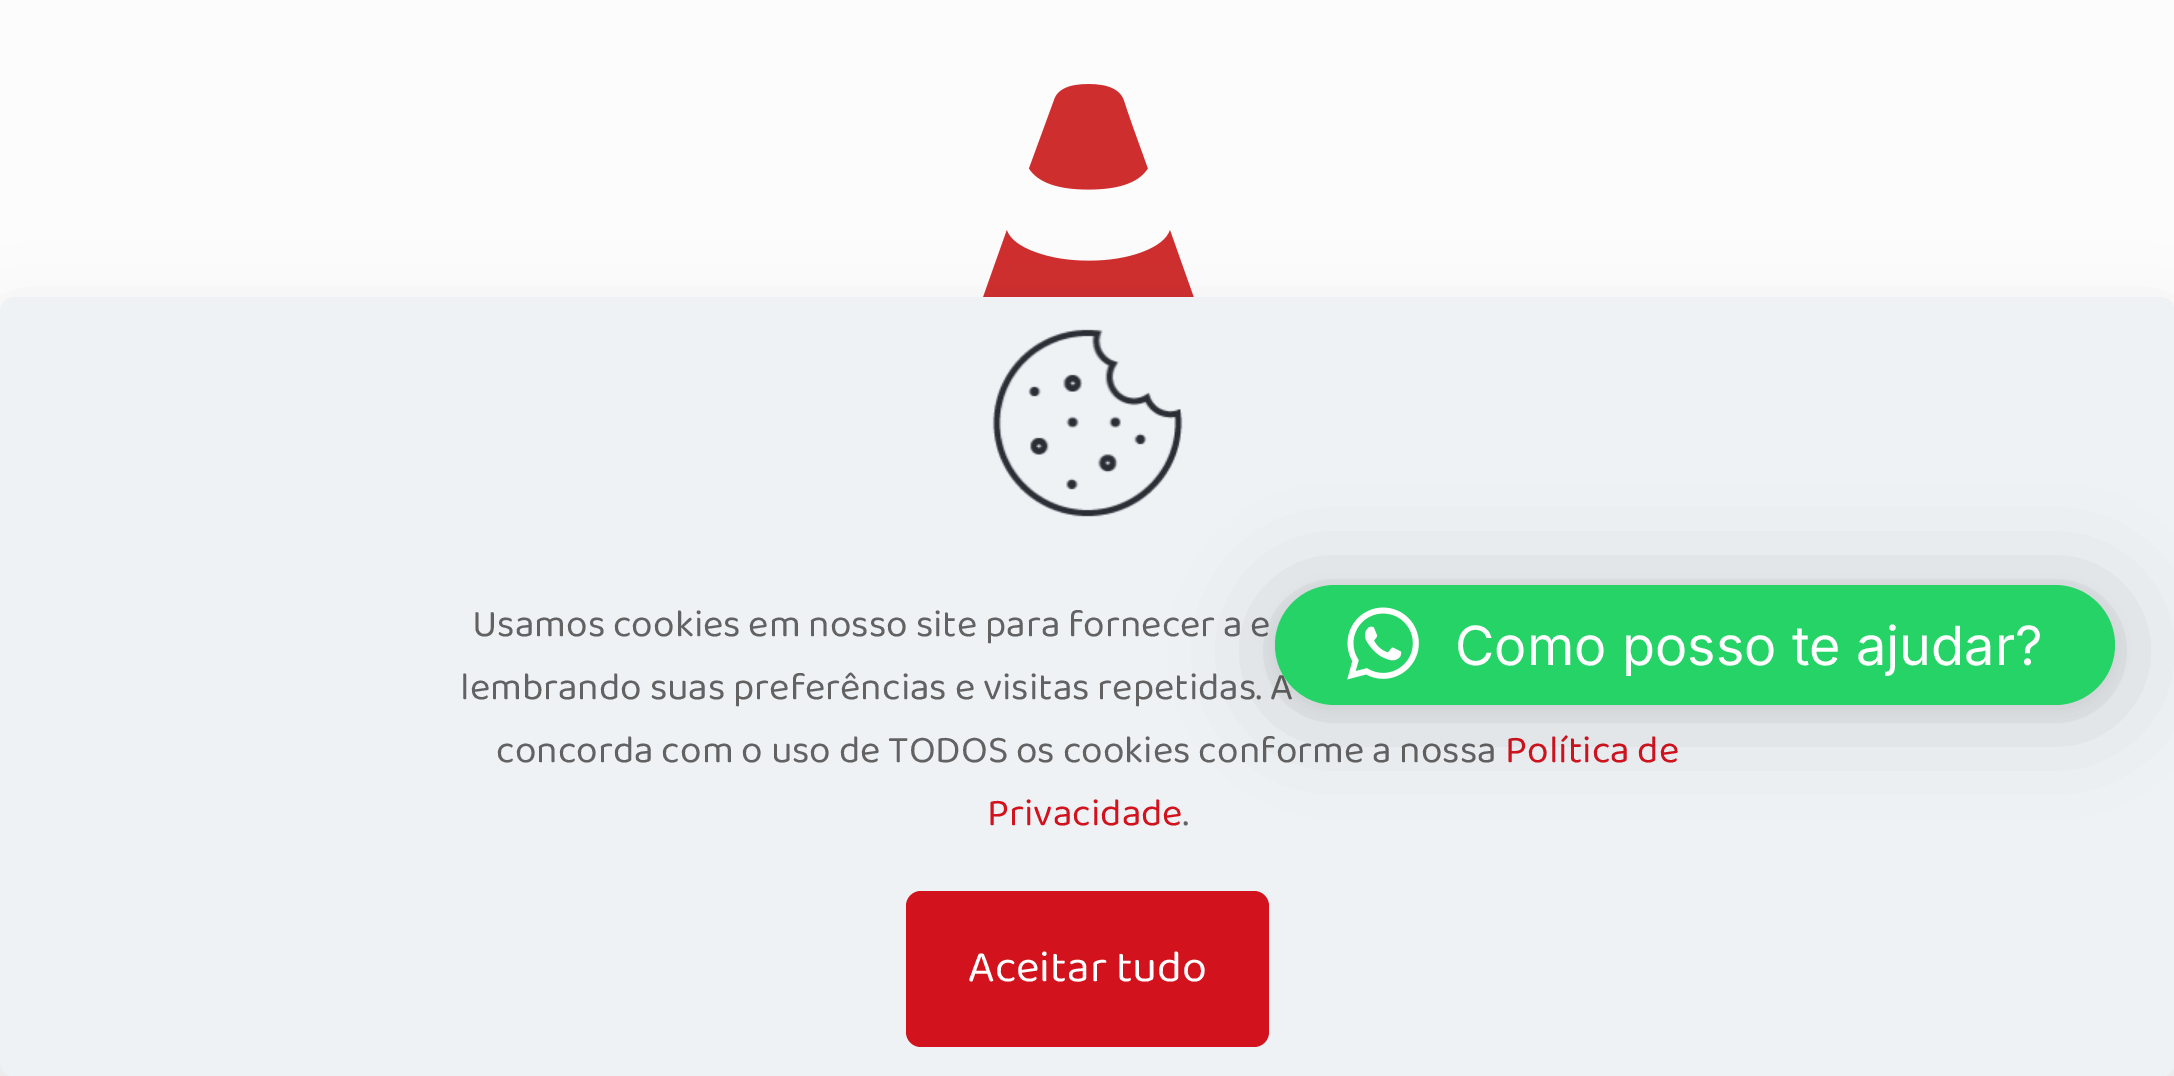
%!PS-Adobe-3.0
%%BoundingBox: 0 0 2174 1076
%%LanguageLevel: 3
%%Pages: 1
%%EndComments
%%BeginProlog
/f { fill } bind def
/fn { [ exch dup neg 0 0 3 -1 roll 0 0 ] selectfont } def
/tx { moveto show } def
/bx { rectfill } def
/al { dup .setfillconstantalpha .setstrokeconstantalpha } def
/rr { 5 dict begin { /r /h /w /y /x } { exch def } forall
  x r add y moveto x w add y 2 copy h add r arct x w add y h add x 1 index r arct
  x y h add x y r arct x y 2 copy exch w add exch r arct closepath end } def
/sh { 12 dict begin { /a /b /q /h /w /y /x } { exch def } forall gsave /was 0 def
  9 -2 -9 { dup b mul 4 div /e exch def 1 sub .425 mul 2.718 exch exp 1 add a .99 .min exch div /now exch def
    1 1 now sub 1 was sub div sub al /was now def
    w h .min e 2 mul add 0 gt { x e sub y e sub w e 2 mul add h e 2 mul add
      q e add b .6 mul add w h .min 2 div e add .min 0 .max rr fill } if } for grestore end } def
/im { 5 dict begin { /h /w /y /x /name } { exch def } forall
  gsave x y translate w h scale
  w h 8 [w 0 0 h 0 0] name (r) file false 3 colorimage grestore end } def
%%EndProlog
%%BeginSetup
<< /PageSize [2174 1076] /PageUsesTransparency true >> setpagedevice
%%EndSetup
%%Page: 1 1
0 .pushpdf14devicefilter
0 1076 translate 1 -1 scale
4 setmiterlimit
0.988 setgray
0 0 2174 1076 bx
(image0.raw) 983 84 211 213 im
0.004 0.027 0.153 setrgbcolor
0 342 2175 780 15 45 0.13 sh
0.933 0.949 0.961 setrgbcolor
0 297 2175 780 15 rr f
(image1.raw) 992 329 191 188 im
/Baloo2-Regular 39 fn
0.384 setgray
(Usamos cookies em nosso site para fornecer a e) 472 636 tx
(lembrando suas preferências e visitas repetidas. A) 460 699 tx
(concorda com o uso de TODOS os cookies conforme a nossa) 496 762 tx
0.824 0.075 0.118 setrgbcolor
(Política de) 1505 762 tx
(Privacidade) 987 825 tx
0.384 setgray
(.) 1183 825 tx
0.824 0.075 0.118 setrgbcolor
906 891 363 156 15 rr f
/Baloo2-Regular 45 fn
1 setgray
(Aceitar tudo) 968 981 tx
0 setgray
1275 591 840 120 60 48 0.16 sh
1275 588 840 120 60 9 0.06 sh
0.145 0.827 0.4 setrgbcolor
1275 585 840 120 60 rr f
(image2.raw) 1347 607 72 73 im
/Inter-Regular 54 fn
1 setgray
(Como posso te ajudar?) 1455 665 tx
.poppdf14devicefilter showpage
%%EOF
